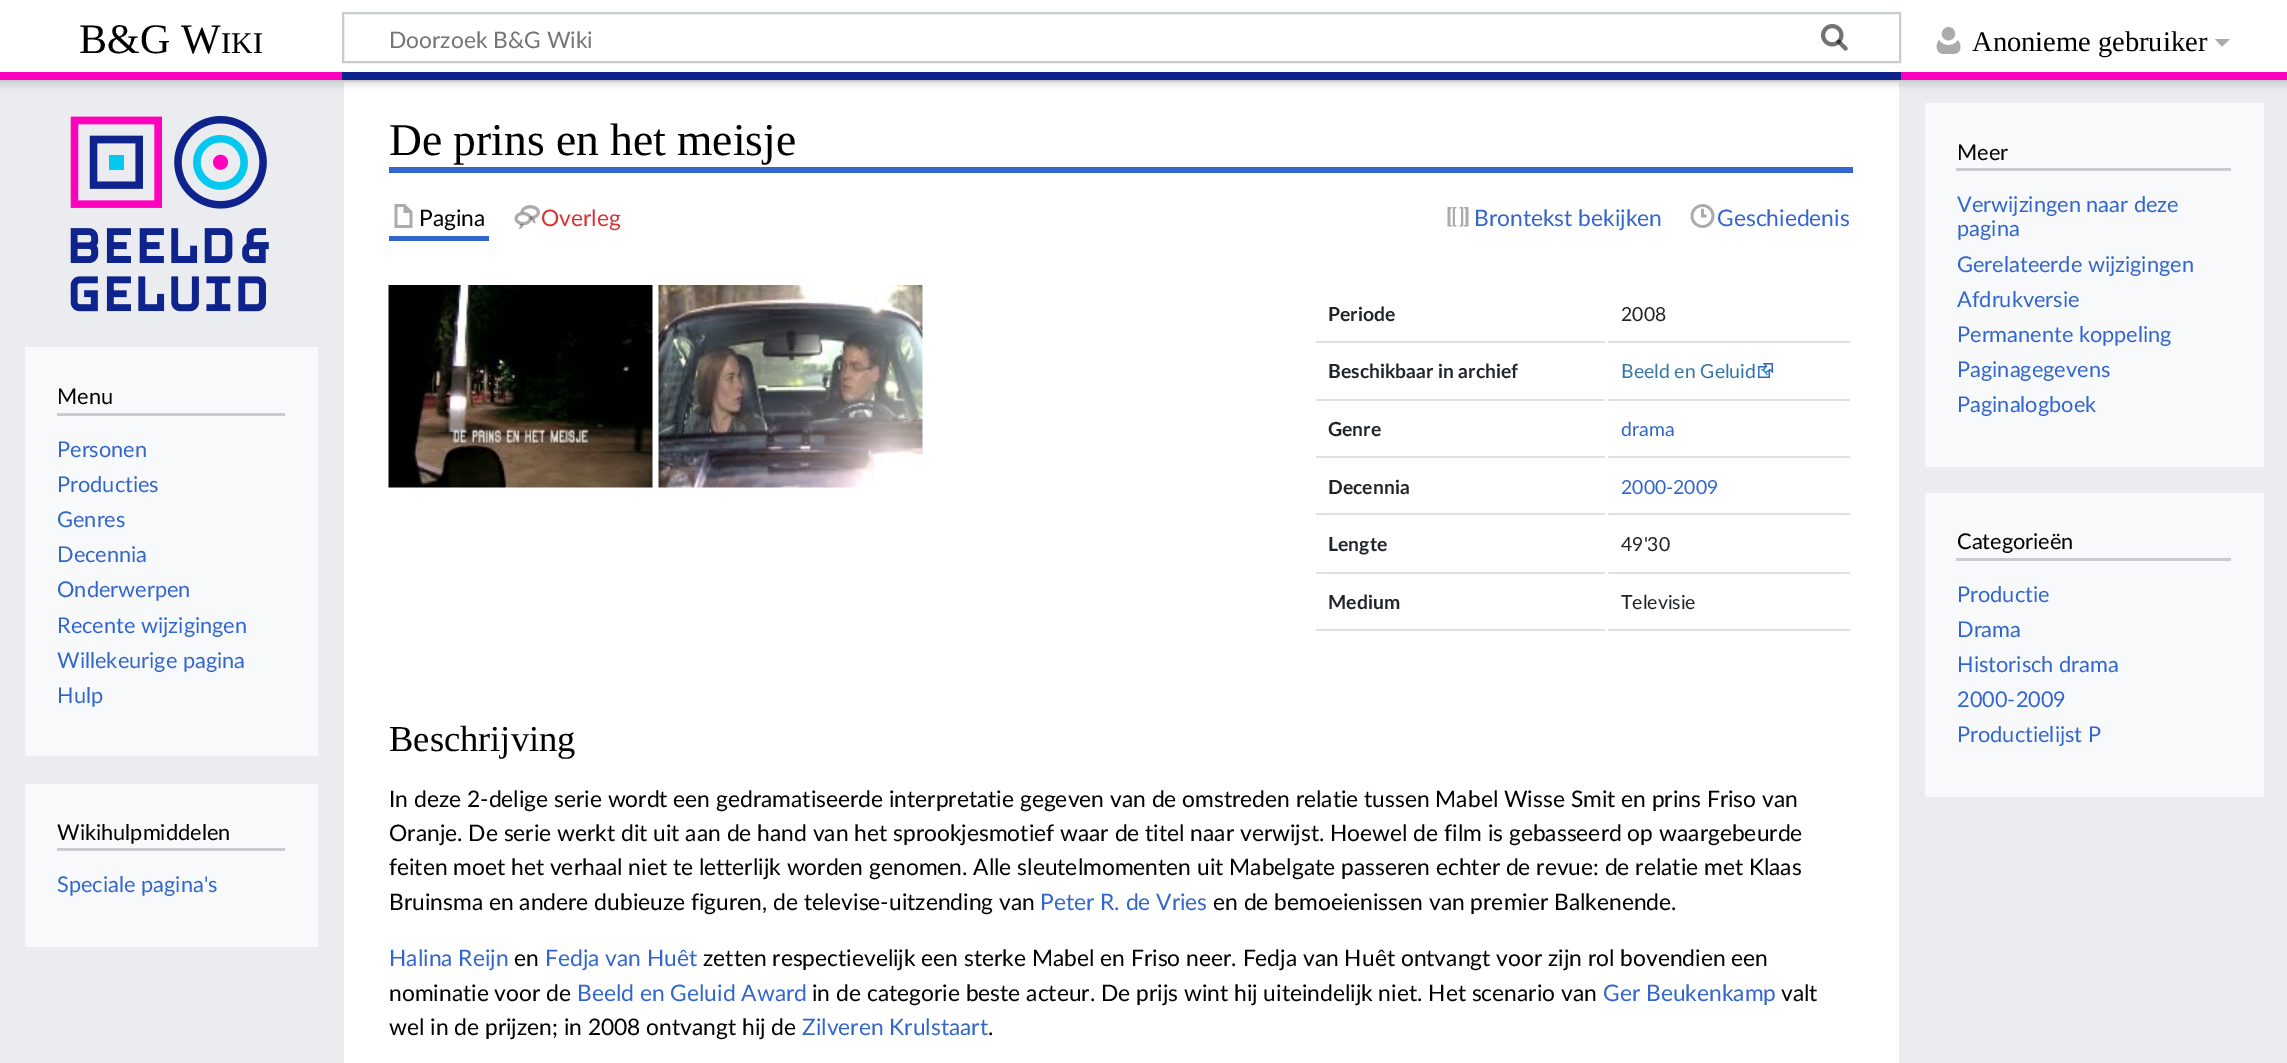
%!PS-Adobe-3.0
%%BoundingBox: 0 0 2287 1063
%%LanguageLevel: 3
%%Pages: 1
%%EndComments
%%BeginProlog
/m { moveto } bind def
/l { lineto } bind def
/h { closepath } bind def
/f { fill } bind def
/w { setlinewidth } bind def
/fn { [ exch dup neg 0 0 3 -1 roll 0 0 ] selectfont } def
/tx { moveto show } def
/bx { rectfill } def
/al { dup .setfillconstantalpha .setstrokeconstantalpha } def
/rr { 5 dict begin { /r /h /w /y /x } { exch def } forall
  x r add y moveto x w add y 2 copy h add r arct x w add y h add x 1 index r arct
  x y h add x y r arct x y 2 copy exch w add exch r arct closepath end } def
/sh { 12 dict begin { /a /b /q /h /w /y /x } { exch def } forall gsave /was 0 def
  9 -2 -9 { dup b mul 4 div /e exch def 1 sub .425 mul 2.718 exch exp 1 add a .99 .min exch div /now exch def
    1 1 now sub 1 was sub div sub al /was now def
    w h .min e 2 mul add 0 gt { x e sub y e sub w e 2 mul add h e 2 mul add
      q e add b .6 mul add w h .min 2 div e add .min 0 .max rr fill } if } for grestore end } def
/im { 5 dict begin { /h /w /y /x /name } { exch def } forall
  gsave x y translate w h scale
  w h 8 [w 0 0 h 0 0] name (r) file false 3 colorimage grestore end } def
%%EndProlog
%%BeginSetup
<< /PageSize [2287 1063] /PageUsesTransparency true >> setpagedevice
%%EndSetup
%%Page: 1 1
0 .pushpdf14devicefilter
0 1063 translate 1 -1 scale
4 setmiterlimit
0.918 0.925 0.941 setrgbcolor
0 0 2287 1063 bx
1 setgray
344 82 1555 981 bx
0 setgray
0 72 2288 8 0 1.5 0.2 sh
-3 74 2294 13 0 2 0.07 sh
1 setgray
0 0 2287 72 bx
/LiberationSerif-Regular 42 fn
0 setgray
(B&G W) 79 53 tx
/LiberationSerif-Regular 30 fn
(IKI) 221 53 tx
0.784 0.8 0.82 setrgbcolor
2 w
343 13 1557 49 rectstroke
(image0.raw) 1821 24 27 27 im
/Lato-Regular 22.8 fn
0.459 setgray
(Doorzoek B&G Wiki) 389 48 tx
(image1.raw) 1821 24 27 27 im
(image2.raw) 1936 27 25 27 im
/LiberationSerif-Regular 28.5 fn
0 setgray
(Anonieme gebruiker) 1972 51 tx
0.671 setgray
2230 39 m 2222 46.5 l 2215 39 l h f
1 0 0.737 setrgbcolor
0 72 342 8 bx
0.059 0.137 0.549 setrgbcolor
342 72 1559 8 bx
1 0 0.737 setrgbcolor
1901 72 386 8 bx
(image3.raw) 70 115 199 197 im
0.973 0.976 0.98 setrgbcolor
25 347 293 409 bx
0.784 0.8 0.82 setrgbcolor
57 413 228 3 bx
/Lato-Regular 21.75 fn
0 setgray
(Menu) 57 404 tx
0.2 0.4 0.8 setrgbcolor
(Personen) 57 457 tx
(Producties) 57 492 tx
(Genres) 57 527 tx
(Decennia) 57 562 tx
(Onderwerpen) 57 597 tx
(Recente wijzigingen) 57 633 tx
(Willekeurige pagina) 57 668 tx
(Hulp) 57 703 tx
0.973 0.976 0.98 setrgbcolor
25 784 293 163 bx
0.784 0.8 0.82 setrgbcolor
57 848 228 3 bx
0 setgray
(Wikihulpmiddelen) 57 840 tx
0.2 0.4 0.8 setrgbcolor
(Speciale pagina's) 57 892 tx
389 167 1464 6 bx
/LiberationSerif-Regular 45.5 fn
0 setgray
(De prins en het meisje) 389 155 tx
0.2 0.4 0.8 setrgbcolor
389 236 100 5 bx
(image4.raw) 394 204 19 24 im
/Lato-Regular 22.8 fn
0 setgray
(Pagina) 419 226 tx
(image5.raw) 514 205 26 25 im
0.843 0.2 0.2 setrgbcolor
(Overleg) 541 226 tx
(image6.raw) 1447 207 22 20 im
0.2 0.4 0.8 setrgbcolor
(Brontekst bekijken) 1474 226 tx
(image7.raw) 1690 204 25 24 im
(Geschiedenis) 1717 226 tx
(image8.raw) 388 285 265 203 im
(image9.raw) 658 285 265 203 im
0.871 0.886 0.902 setrgbcolor
1316 341 289 2 bx
/Lato-Bold 19.4 fn
0.129 0.145 0.161 setrgbcolor
(Periode) 1328 321 tx
0.871 0.886 0.902 setrgbcolor
1608 341 242 2 bx
/Lato-Regular 19.4 fn
0.129 0.145 0.161 setrgbcolor
(2008) 1621 321 tx
0.871 0.886 0.902 setrgbcolor
1316 399 289 2 bx
/Lato-Bold 19.4 fn
0.129 0.145 0.161 setrgbcolor
(Beschikbaar in archief) 1328 378 tx
0.871 0.886 0.902 setrgbcolor
1608 399 242 2 bx
/Lato-Regular 19.4 fn
0.2 0.467 0.667 setrgbcolor
(Beeld en Geluid) 1621 378 tx
(image10.raw) 1758 363 15 15 im
0.871 0.886 0.902 setrgbcolor
1316 456 289 2 bx
/Lato-Bold 19.4 fn
0.129 0.145 0.161 setrgbcolor
(Genre) 1328 436 tx
0.871 0.886 0.902 setrgbcolor
1608 456 242 2 bx
/Lato-Regular 19.4 fn
0.2 0.4 0.8 setrgbcolor
(drama) 1621 436 tx
0.871 0.886 0.902 setrgbcolor
1316 513 289 2 bx
/Lato-Bold 19.4 fn
0.129 0.145 0.161 setrgbcolor
(Decennia) 1328 494 tx
0.871 0.886 0.902 setrgbcolor
1608 513 242 2 bx
/Lato-Regular 19.4 fn
0.2 0.4 0.8 setrgbcolor
(2000-2009) 1621 494 tx
0.871 0.886 0.902 setrgbcolor
1316 572 289 2 bx
/Lato-Bold 19.4 fn
0.129 0.145 0.161 setrgbcolor
(Lengte) 1328 551 tx
0.871 0.886 0.902 setrgbcolor
1608 572 242 2 bx
/Lato-Regular 19.4 fn
0.129 0.145 0.161 setrgbcolor
(49'30) 1621 551 tx
0.871 0.886 0.902 setrgbcolor
1316 629 289 2 bx
/Lato-Bold 19.4 fn
0.129 0.145 0.161 setrgbcolor
(Medium) 1328 609 tx
0.871 0.886 0.902 setrgbcolor
1608 629 242 2 bx
/Lato-Regular 19.4 fn
0.129 0.145 0.161 setrgbcolor
(Televisie) 1621 609 tx
/LiberationSerif-Regular 36.5 fn
0 setgray
(Beschrijving) 389 751 tx
/Lato-Regular 22.8 fn
(In deze 2-delige serie wordt een gedramatiseerde interpretatie gegeven van de omstreden relatie tussen Mabel Wisse Smit en prins Friso van) 389 807 tx
(Oranje. De serie werkt dit uit aan de hand van het sprookjesmotief waar de titel naar verwijst. Hoewel de film is gebasseerd op waargebeurde) 389 841 tx
(feiten moet het verhaal niet te letterlijk worden genomen. Alle sleutelmomenten uit Mabelgate passeren echter de revue: de relatie met Klaas) 389 875 tx
(Bruinsma en andere dubieuze figuren, de televise-uitzending van) 389 910 tx
0.2 0.4 0.8 setrgbcolor
(Peter R. de Vries) 1040 910 tx
0 setgray
(en de bemoeienissen van premier Balkenende.) 1213 910 tx
0.2 0.4 0.8 setrgbcolor
(Halina Reijn) 389 966 tx
0 setgray
(en) 514 966 tx
0.2 0.4 0.8 setrgbcolor
(Fedja van Huêt) 545 966 tx
0 setgray
(zetten respectievelijk een sterke Mabel en Friso neer. Fedja van Huêt ontvangt voor zijn rol bovendien een) 703 966 tx
(nominatie voor de) 389 1001 tx
0.2 0.4 0.8 setrgbcolor
(Beeld en Geluid Award) 577 1001 tx
0 setgray
(in de categorie beste acteur. De prijs wint hij uiteindelijk niet. Het scenario van) 812 1001 tx
0.2 0.4 0.8 setrgbcolor
(Ger Beukenkamp) 1603 1001 tx
0 setgray
(valt) 1781 1001 tx
(wel in de prijzen; in 2008 ontvangt hij de) 389 1035 tx
0.2 0.4 0.8 setrgbcolor
(Zilveren Krulstaart) 802 1035 tx
0 setgray
(.) 988 1035 tx
0.973 0.976 0.98 setrgbcolor
1925 103 339 364 bx
0.784 0.8 0.82 setrgbcolor
1956 168 275 3 bx
/Lato-Regular 21.75 fn
0 setgray
(Meer) 1957 160 tx
0.2 0.4 0.8 setrgbcolor
(Verwijzingen naar deze) 1957 212 tx
(pagina) 1957 236 tx
(Gerelateerde wijzigingen) 1957 272 tx
(Afdrukversie) 1957 307 tx
(Permanente koppeling) 1957 342 tx
(Paginagegevens) 1957 377 tx
(Paginalogboek) 1957 412 tx
0.973 0.976 0.98 setrgbcolor
1925 493 339 304 bx
0.784 0.8 0.82 setrgbcolor
1956 558 275 3 bx
0 setgray
(Categorieën) 1957 549 tx
0.2 0.4 0.8 setrgbcolor
(Productie) 1957 602 tx
(Drama) 1957 637 tx
(Historisch drama) 1957 672 tx
(2000-2009) 1957 707 tx
(Productielijst P) 1957 742 tx
.poppdf14devicefilter showpage
%%EOF
